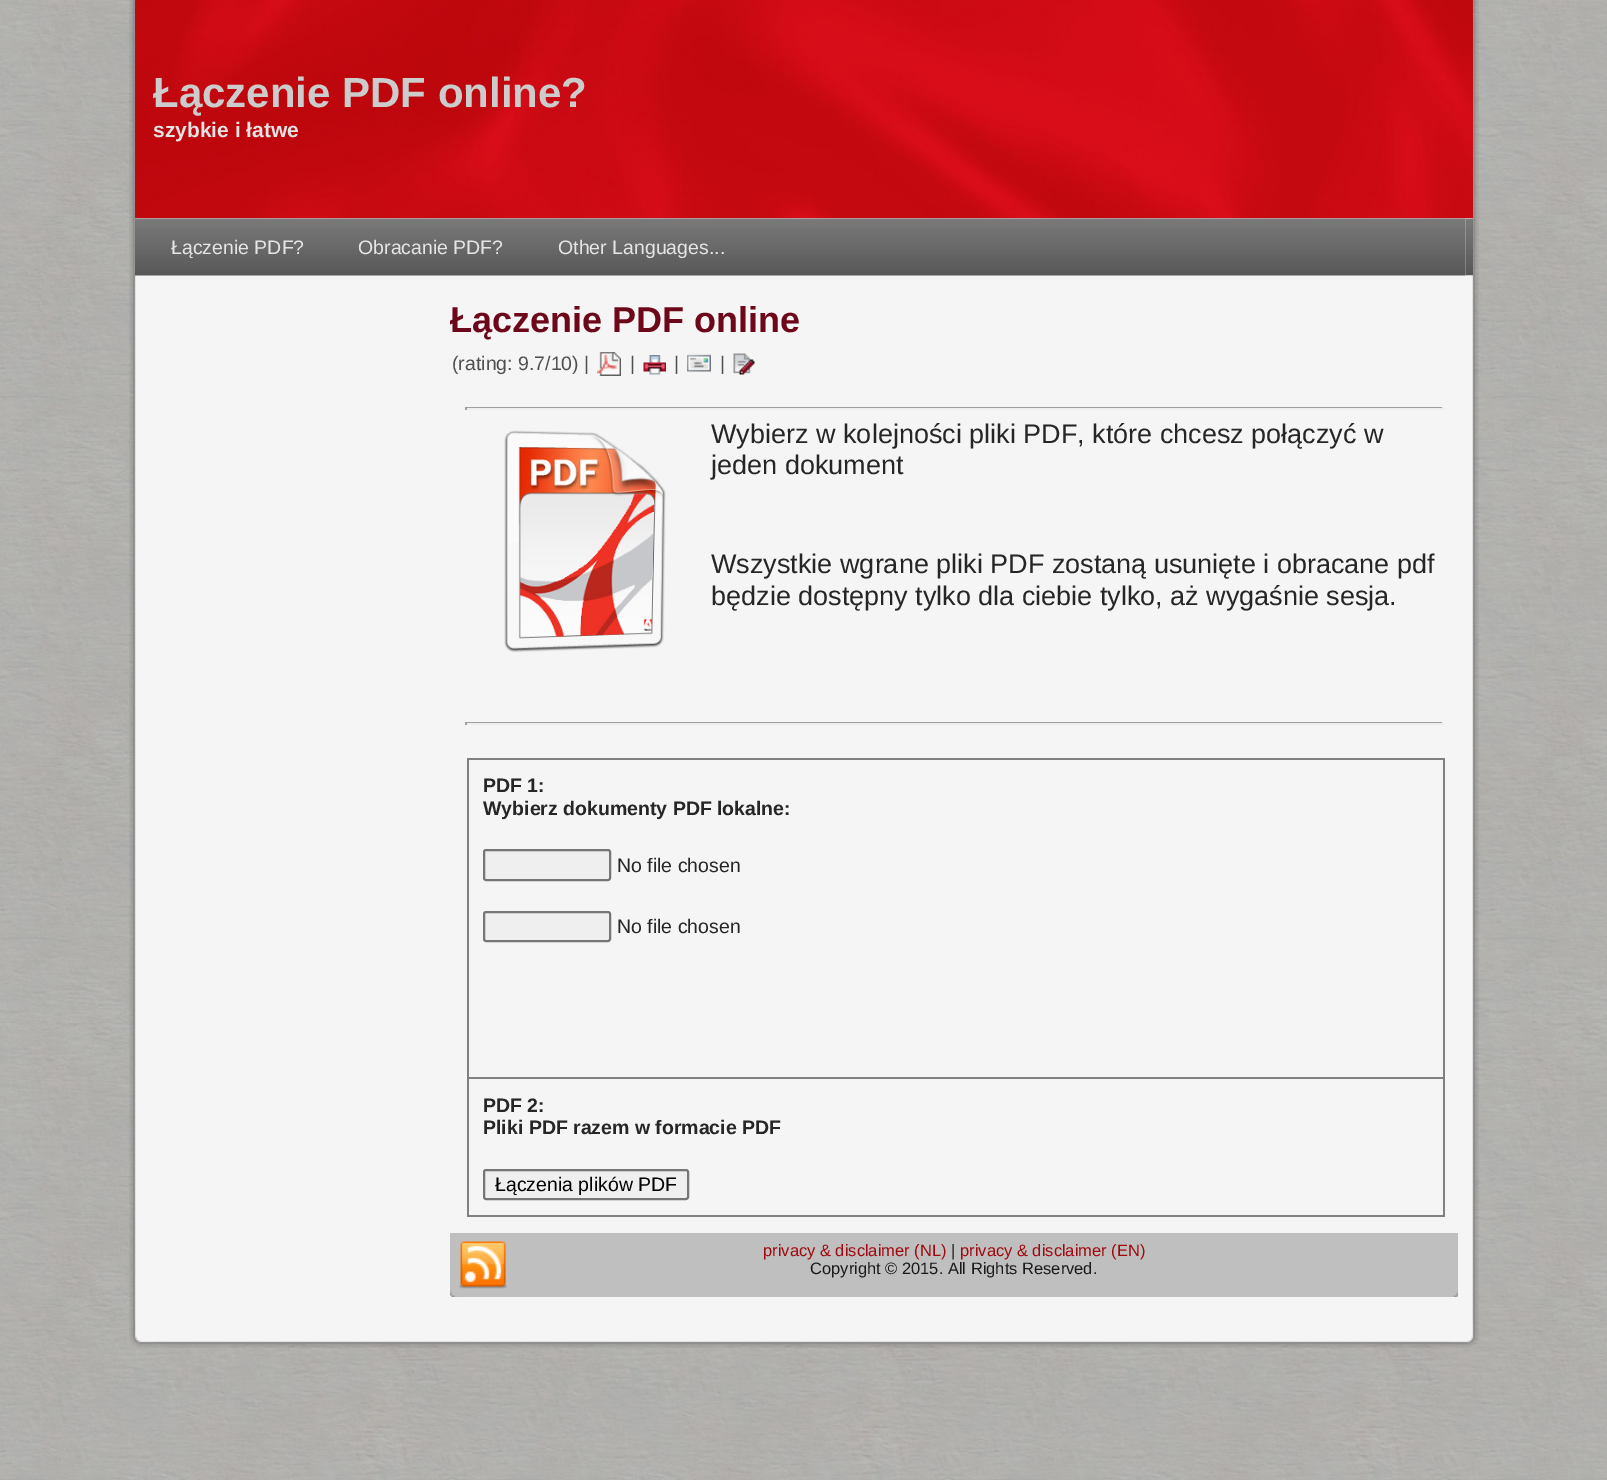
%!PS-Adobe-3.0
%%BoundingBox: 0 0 1607 1480
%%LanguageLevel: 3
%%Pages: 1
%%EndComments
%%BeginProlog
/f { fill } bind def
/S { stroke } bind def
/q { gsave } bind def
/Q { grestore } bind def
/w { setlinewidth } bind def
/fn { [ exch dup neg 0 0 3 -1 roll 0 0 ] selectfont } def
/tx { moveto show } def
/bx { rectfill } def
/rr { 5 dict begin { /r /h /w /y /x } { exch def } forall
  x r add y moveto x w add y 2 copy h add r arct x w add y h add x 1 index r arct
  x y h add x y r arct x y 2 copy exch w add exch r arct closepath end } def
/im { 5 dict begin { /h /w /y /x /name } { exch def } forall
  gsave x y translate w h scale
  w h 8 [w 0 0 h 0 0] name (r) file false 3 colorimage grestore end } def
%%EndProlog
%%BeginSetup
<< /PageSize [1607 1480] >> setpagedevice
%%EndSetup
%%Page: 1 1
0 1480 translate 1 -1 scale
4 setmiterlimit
1 setgray
0 0 1607 1480 bx
(image0.raw) 0 0 1607 1480 im
(image1.raw) 129 0 6 15 im
(image2.raw) 1473 0 6 15 im
(image3.raw) 129 14 27 1307 im
(image16.raw) 1452 14 27 1307 im
0.961 setgray
156 218 1296 1104 bx
(image4.raw) 135 0 1338 219 im
(image5.raw) 145 4 1318 204 im
/LiberationSans-Bold 42 fn
0.8 setgray
(Łączenie PDF online?) 153 107 tx
/LiberationSans-Bold 21 fn
0.898 setgray
(szybkie i łatwe) 153 137 tx
(image6.raw) 135 218 1331 58 im
(image7.raw) 1465 218 8 58 im
/LiberationSans-Regular 19.5 fn
(Łączenie PDF?) 171 254 tx
(Obracanie PDF?) 358 254 tx
(Other Languages...) 558 254 tx
/LiberationSans-Bold 36 fn
0.427 0.031 0.106 setrgbcolor
(Łączenie PDF online) 450 332 tx
/LiberationSans-Regular 19.5 fn
0.31 setgray
(\(rating: 9.7/10\) |) 452 370 tx
(image8.raw) 597 352 24 24 im
(|) 630 370 tx
(image9.raw) 643 355 23 20 im
(|) 674 370 tx
(image10.raw) 687 354 24 18 im
(|) 720 370 tx
(image11.raw) 733 353 22 22 im
0.624 setgray
465 407 978 1 bx
0.933 setgray
1442 407 2 3 bx
465 408 978 2 bx
0.624 setgray
465 407 2 3 bx
(image12.raw) 504 430 162 223 im
/LiberationSans-Regular 27 fn
0.149 setgray
(Wybierz w kolejności pliki PDF, które chcesz połączyć w) 711 443 tx
(jeden dokument) 711 474 tx
(Wszystkie wgrane pliki PDF zostaną usunięte i obracane pdf) 711 573 tx
(będzie dostępny tylko dla ciebie tylko, aż wygaśnie sesja.) 711 605 tx
0.624 setgray
465 722 978 1 bx
0.933 setgray
1442 722 2 3 bx
465 723 978 2 bx
0.624 setgray
465 722 2 3 bx
0.502 setgray
467 758 978 2 bx
1443 758 2 459 bx
467 1215 978 2 bx
467 758 2 459 bx
/LiberationSans-Bold 19.5 fn
0.149 setgray
(PDF 1:) 483 792 tx
(Wybierz dokumenty PDF lokalne:) 483 815 tx
0.937 setgray
484 850 126 30 2 rr q f Q
0.463 setgray
2 w
S
/LiberationSans-Regular 19.5 fn
0.149 setgray
(No file chosen) 617 872 tx
0.937 setgray
484 912 126 29 2 rr q f Q
0.463 setgray
S
0.149 setgray
(No file chosen) 617 933 tx
0.502 setgray
467 1077 978 2 bx
/LiberationSans-Bold 19.5 fn
0.149 setgray
(PDF 2:) 483 1112 tx
(Pliki PDF razem w formacie PDF) 483 1134 tx
0.937 setgray
484 1170 204 29 2 rr q f Q
0.463 setgray
S
/LiberationSans-Regular 19.5 fn
0 setgray
(Łączenia plików PDF) 495 1191 tx
0.749 setgray
450 1233 1008 57 bx
(image13.raw) 459 1241 48 48 im
/LiberationSans-Regular 16.5 fn
0.627 0.031 0.063 setrgbcolor
(privacy & disclaimer \(NL\)) 763 1256 tx
0.102 setgray
(|) 951 1256 tx
0.627 0.031 0.063 setrgbcolor
(privacy & disclaimer \(EN\)) 960 1256 tx
0.102 setgray
(Copyright © 2015. All Rights Reserved.) 810 1274 tx
(image14.raw) 450 1290 7 7 im
0.749 setgray
457 1290 994 7 bx
(image15.raw) 1451 1290 7 7 im
(image17.raw) 129 1321 27 27 im
(image18.raw) 156 1322 1296 26 im
(image19.raw) 1452 1321 27 27 im
showpage
%%EOF
